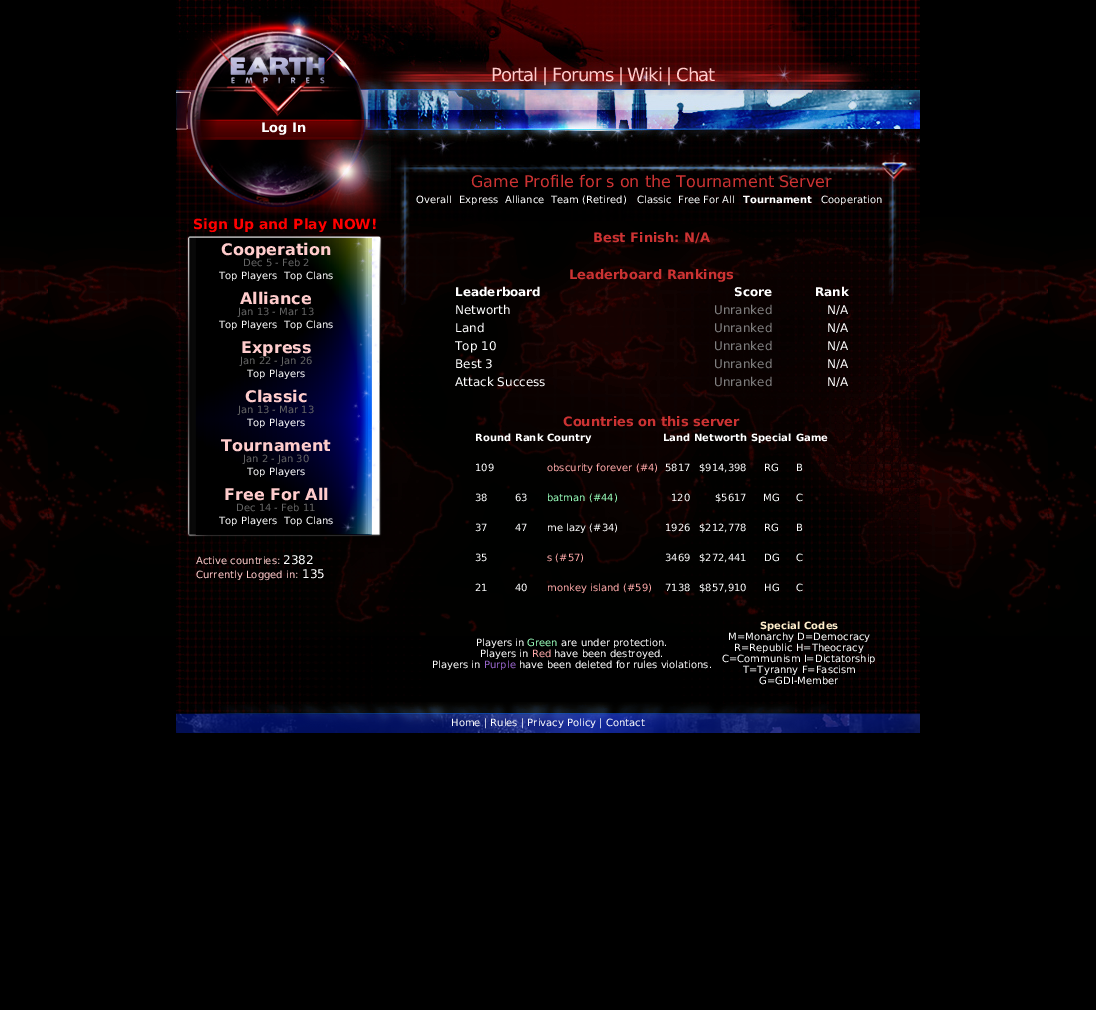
%!PS-Adobe-3.0
%%BoundingBox: 0 0 1096 1010
%%LanguageLevel: 3
%%Pages: 1
%%EndComments
%%BeginProlog
/m { moveto } bind def
/fn { [ exch dup neg 0 0 3 -1 roll 0 0 ] selectfont } def
/tx { moveto show } def
/bx { rectfill } def
/im { 5 dict begin { /h /w /y /x /name } { exch def } forall
  gsave x y translate w h scale
  w h 8 [w 0 0 h 0 0] name (r) file false 3 colorimage grestore end } def
%%EndProlog
%%BeginSetup
<< /PageSize [1096 1010] >> setpagedevice
%%EndSetup
%%Page: 1 1
0 1010 translate 1 -1 scale
4 setmiterlimit
0 setgray
0 0 1096 1010 bx
(image0.raw) 0 217 1096 419 im
(image1.raw) 176 221 744 512 im
(image2.raw) 176 0 744 221 im
/DejaVuSans-Regular 18 fn
1 0.8 0.8 setrgbcolor
491 81 m -1 0 (Portal | Forums | Wiki | Chat) ashow
(image3.raw) 177 12 214 209 im
(image4.raw) 192 119 183 21 im
/DejaVuSans-Bold 13 fn
1 setgray
(Log In) 261 132 tx
/DejaVuSans-Bold 14 fn
1 0 0 setrgbcolor
(Sign Up and Play NOW!) 193 229 tx
(image5.raw) 181 234 211 311 im
/DejaVuSans-Bold 16 fn
1 0.8 0.8 setrgbcolor
(Cooperation) 221 255 tx
/DejaVuSans-Regular 10 fn
0.4 setgray
(Dec 5 - Feb 2) 243 266 tx
1 setgray
(Top Players) 219 279 tx
(Top Clans) 284 279 tx
/DejaVuSans-Bold 16 fn
1 0.8 0.8 setrgbcolor
(Alliance) 240 304 tx
/DejaVuSans-Regular 10 fn
0.4 setgray
(Jan 13 - Mar 13) 238 315 tx
1 setgray
(Top Players) 219 328 tx
(Top Clans) 284 328 tx
/DejaVuSans-Bold 16 fn
1 0.8 0.8 setrgbcolor
(Express) 241 353 tx
/DejaVuSans-Regular 10 fn
0.4 setgray
(Jan 22 - Jan 26) 240 364 tx
1 setgray
(Top Players) 247 377 tx
/DejaVuSans-Bold 16 fn
1 0.8 0.8 setrgbcolor
(Classic) 245 402 tx
/DejaVuSans-Regular 10 fn
0.4 setgray
(Jan 13 - Mar 13) 238 413 tx
1 setgray
(Top Players) 247 426 tx
/DejaVuSans-Bold 16 fn
1 0.8 0.8 setrgbcolor
(Tournament) 221 451 tx
/DejaVuSans-Regular 10 fn
0.4 setgray
(Jan 2 - Jan 30) 243 462 tx
1 setgray
(Top Players) 247 475 tx
/DejaVuSans-Bold 16 fn
1 0.8 0.8 setrgbcolor
(Free For All) 224 500 tx
/DejaVuSans-Regular 10 fn
0.4 setgray
(Dec 14 - Feb 11) 236 511 tx
1 setgray
(Top Players) 219 524 tx
(Top Clans) 284 524 tx
1 0.8 0.8 setrgbcolor
(Active countries:) 196 564 tx
/DejaVuSans-Regular 12 fn
1 setgray
(2382) 283 564 tx
/DejaVuSans-Regular 10 fn
1 0.8 0.8 setrgbcolor
(Currently Logged in:) 196 578 tx
/DejaVuSans-Regular 12 fn
1 setgray
(135) 302 578 tx
(image6.raw) 394 150 522 155 im
/DejaVuSans-Regular 16 fn
0.8 0.2 0.2 setrgbcolor
(Game Profile for s on the Tournament Server) 471 187 tx
/DejaVuSans-Regular 10 fn
1 setgray
(Overall) 416 203 tx
(Express) 459 203 tx
(Alliance) 505 203 tx
(Team \(Retired\)) 551 203 tx
(Classic) 637 203 tx
(Free For All) 678 203 tx
/DejaVuSans-Bold 10 fn
(Tournament) 743 203 tx
/DejaVuSans-Regular 10 fn
(Cooperation) 821 203 tx
/DejaVuSans-Bold 13 fn
0.8 0.2 0.2 setrgbcolor
(Best Finish: N/A) 593 242 tx
(Leaderboard Rankings) 569 279 tx
/DejaVuSans-Bold 12 fn
1 setgray
(Leaderboard) 455 296 tx
(Score) 734 296 tx
(Rank) 815 296 tx
/DejaVuSans-Regular 12 fn
(Networth) 455 314 tx
0.502 setgray
(Unranked) 714 314 tx
1 setgray
(N/A) 827 314 tx
(Land) 455 332 tx
0.502 setgray
(Unranked) 714 332 tx
1 setgray
(N/A) 827 332 tx
(Top 10) 455 350 tx
0.502 setgray
(Unranked) 714 350 tx
1 setgray
(N/A) 827 350 tx
(Best 3) 455 368 tx
0.502 setgray
(Unranked) 714 368 tx
1 setgray
(N/A) 827 368 tx
(Attack Success) 455 386 tx
0.502 setgray
(Unranked) 714 386 tx
1 setgray
(N/A) 827 386 tx
/DejaVuSans-Bold 13 fn
0.8 0.2 0.2 setrgbcolor
(Countries on this server) 563 426 tx
/DejaVuSans-Bold 10 fn
1 setgray
(Round) 475 441 tx
(Rank) 515 441 tx
(Country) 547 441 tx
(Land) 663 441 tx
(Networth) 694 441 tx
(Special) 751 441 tx
(Game) 796 441 tx
/DejaVuSans-Regular 10 fn
(109) 475 471 tx
1 0.667 0.667 setrgbcolor
(obscurity forever \(#4\)) 547 471 tx
1 setgray
(5817) 665 471 tx
($914,398) 699 471 tx
(RG) 764 471 tx
(B) 796 471 tx
(38) 475 501 tx
(63) 515 501 tx
0.6 1 0.733 setrgbcolor
(batman \(#44\)) 547 501 tx
1 setgray
(120) 671 501 tx
($5617) 715 501 tx
(MG) 763 501 tx
(C) 796 501 tx
(37) 475 531 tx
(47) 515 531 tx
(me lazy \(#34\)) 547 531 tx
(1926) 665 531 tx
($212,778) 699 531 tx
(RG) 764 531 tx
(B) 796 531 tx
(35) 475 561 tx
1 0.667 0.667 setrgbcolor
(s \(#57\)) 547 561 tx
1 setgray
(3469) 665 561 tx
($272,441) 699 561 tx
(DG) 764 561 tx
(C) 796 561 tx
(21) 475 591 tx
(40) 515 591 tx
1 0.667 0.667 setrgbcolor
(monkey island \(#59\)) 547 591 tx
1 setgray
(7138) 665 591 tx
($857,910) 699 591 tx
(HG) 764 591 tx
(C) 796 591 tx
(Players in) 476 646 tx
0.6 1 0.733 setrgbcolor
(Green) 527 646 tx
1 setgray
(are under protection.) 561 646 tx
(Players in) 480 657 tx
1 0.667 0.667 setrgbcolor
(Red) 532 657 tx
1 setgray
(have been destroyed.) 554 657 tx
(Players in) 432 668 tx
0.6 0.4 0.8 setrgbcolor
(Purple) 484 668 tx
1 setgray
(have been deleted for rules violations.) 519 668 tx
/DejaVuSans-Bold 10 fn
1 0.933 0.8 setrgbcolor
(Special Codes) 760 629 tx
/DejaVuSans-Regular 10 fn
1 setgray
(M=Monarchy D=Democracy) 728 640 tx
(R=Republic H=Theocracy) 734 651 tx
(C=Communism I=Dictatorship) 722 662 tx
(T=Tyranny F=Fascism) 743 673 tx
(G=GDI-Member) 759 684 tx
(image7.raw) 176 702 744 31 im
(Home | Rules | Privacy Policy | Contact) 451 726 tx
showpage
%%EOF
